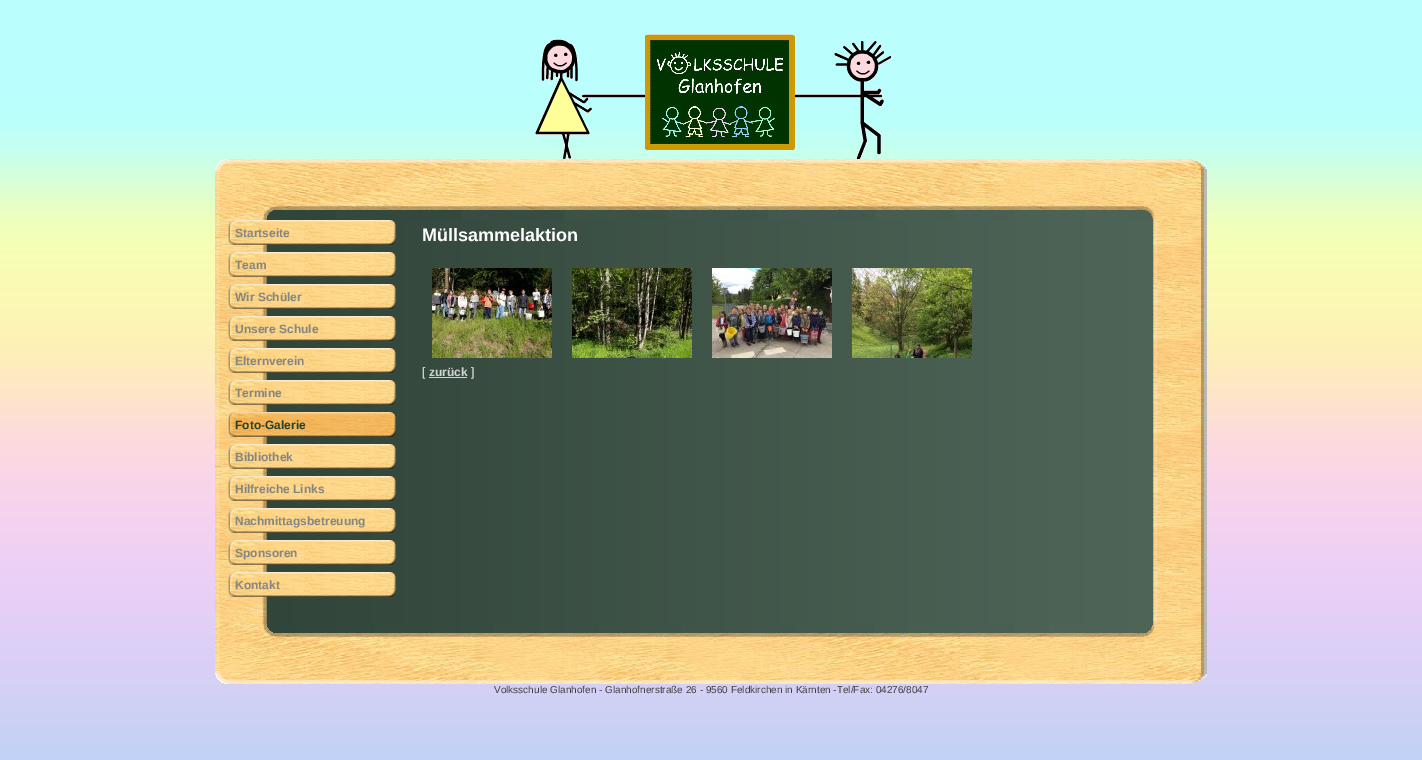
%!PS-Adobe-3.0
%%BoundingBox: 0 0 1422 760
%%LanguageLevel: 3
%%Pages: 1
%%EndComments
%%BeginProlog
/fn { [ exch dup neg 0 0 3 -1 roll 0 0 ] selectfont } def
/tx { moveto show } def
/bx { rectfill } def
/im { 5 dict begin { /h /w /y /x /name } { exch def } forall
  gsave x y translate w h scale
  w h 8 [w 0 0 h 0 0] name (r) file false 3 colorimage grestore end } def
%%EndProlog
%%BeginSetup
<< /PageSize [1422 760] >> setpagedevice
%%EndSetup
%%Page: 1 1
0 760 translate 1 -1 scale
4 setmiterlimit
1 setgray
0 0 1422 760 bx
(image0.raw) 0 0 1422 760 im
(image1.raw) 535 34 356 125 im
(image2.raw) 215 159 992 61 im
(image3.raw) 215 220 182 404 im
(image4.raw) 228 220 168 25 im
/LiberationSans-Bold 12 fn
0.51 0.529 0.518 setrgbcolor
(Startseite) 235 237 tx
(image5.raw) 228 252 168 25 im
(Team) 235 269 tx
(image6.raw) 228 284 168 25 im
(Wir Schüler) 235 301 tx
(image7.raw) 228 316 168 25 im
(Unsere Schule) 235 333 tx
(image8.raw) 228 348 168 25 im
(Elternverein) 235 365 tx
(image9.raw) 228 380 168 25 im
(Termine) 235 397 tx
(image10.raw) 228 412 169 25 im
0.141 0.255 0.188 setrgbcolor
(Foto-Galerie) 235 429 tx
(image11.raw) 228 444 168 25 im
0.51 0.529 0.518 setrgbcolor
(Bibliothek) 235 461 tx
(image12.raw) 228 476 168 25 im
(Hilfreiche Links) 235 493 tx
(image13.raw) 228 508 168 25 im
(Nachmittagsbetreuung) 235 525 tx
(image14.raw) 228 540 168 25 im
(Sponsoren) 235 557 tx
(image15.raw) 228 572 168 25 im
(Kontakt) 235 589 tx
(image16.raw) 397 220 810 404 im
/LiberationSans-Bold 18 fn
1 setgray
(Müllsammelaktion) 422 241 tx
(image17.raw) 432 268 120 90 im
(image18.raw) 572 268 120 90 im
(image19.raw) 712 268 120 90 im
(image20.raw) 852 268 120 90 im
/LiberationSans-Regular 12 fn
([) 422 376 tx
/LiberationSans-Bold 12 fn
0.827 setgray
(zurück) 429 376 tx
429 377 38 1 bx
/LiberationSans-Regular 12 fn
1 setgray
(]) 471 376 tx
(image21.raw) 215 624 992 60 im
/LiberationSans-Regular 10 fn
0.247 setgray
(Volksschule Glanhofen - Glanhofnerstraße 26 - 9560 Feldkirchen in Kärnten -Tel/Fax: 04276/8047) 494 693 tx
showpage
%%EOF
